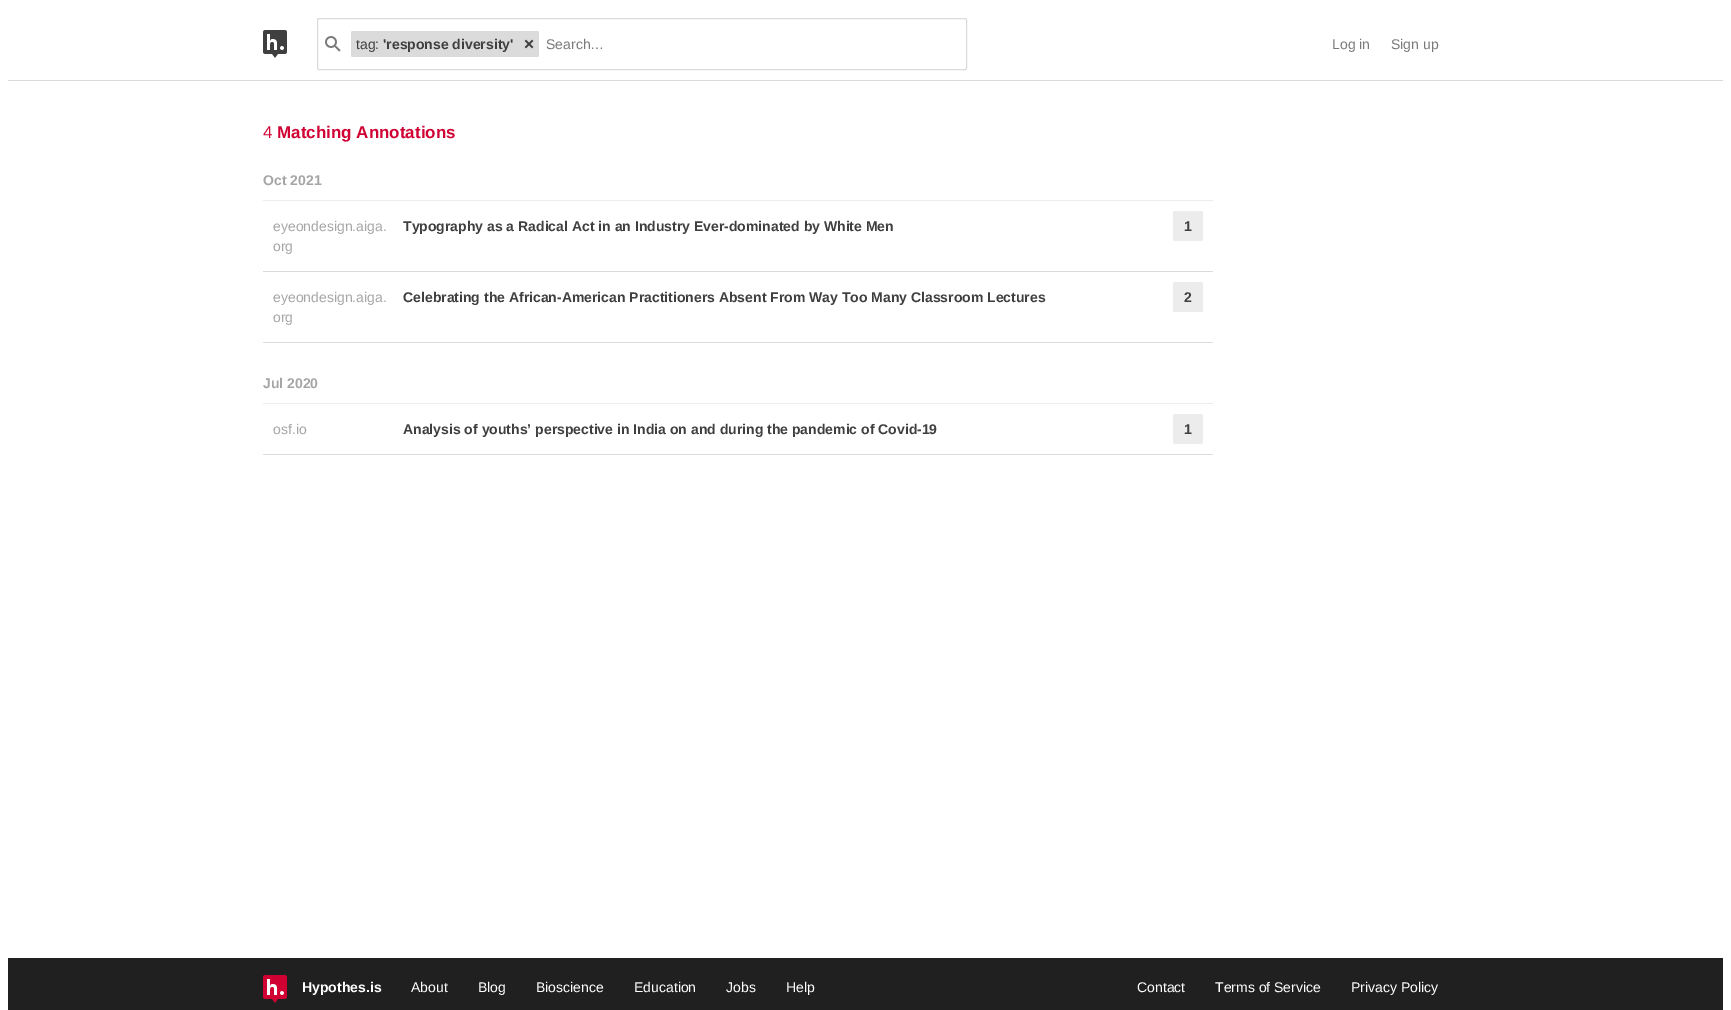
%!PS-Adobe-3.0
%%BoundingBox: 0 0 1731 1010
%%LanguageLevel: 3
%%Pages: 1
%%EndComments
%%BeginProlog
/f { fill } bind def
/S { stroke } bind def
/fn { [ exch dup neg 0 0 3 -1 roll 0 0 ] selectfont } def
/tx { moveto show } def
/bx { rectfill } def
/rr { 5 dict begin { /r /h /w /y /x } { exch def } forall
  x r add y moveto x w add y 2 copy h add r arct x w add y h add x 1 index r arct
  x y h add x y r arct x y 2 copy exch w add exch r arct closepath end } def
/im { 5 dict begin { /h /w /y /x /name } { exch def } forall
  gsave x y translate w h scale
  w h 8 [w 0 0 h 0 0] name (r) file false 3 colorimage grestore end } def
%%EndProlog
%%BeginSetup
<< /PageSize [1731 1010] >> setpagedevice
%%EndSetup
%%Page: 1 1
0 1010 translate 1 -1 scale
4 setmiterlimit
1 setgray
0 0 1731 1010 bx
0.859 setgray
8 80 1715 1 bx
(image0.raw) 263 30 24 28 im
317.5 18.5 649 51 1.5 rr S
(image1.raw) 325 36 16 16 im
351 31 188 26 2 rr f
/LiberationSans-Regular 14 fn
0.247 setgray
(tag:) 356 49 tx
/LiberationSans-Bold 14 fn
('response diversity') 383 49 tx
(image2.raw) 524 39 10 10 im
/LiberationSans-Regular 14 fn
0.478 setgray
(Search…) 546 49 tx
(Log in) 1332 49 tx
(Sign up) 1391 49 tx
/LiberationSans-Regular 17 fn
0.816 0 0.196 setrgbcolor
(4) 263 138 tx
/LiberationSans-Bold 17 fn
(Matching Annotations) 277 138 tx
0.925 setgray
263 200 950 1 bx
/LiberationSans-Bold 14 fn
0.651 setgray
(Oct 2021) 263 185 tx
0.859 setgray
263 271 950 1 bx
/LiberationSans-Regular 14 fn
0.651 setgray
(eyeondesign.aiga.) 273 231 tx
(org) 273 251 tx
/LiberationSans-Bold 14 fn
0.247 setgray
(Typography as a Radical Act in an Industry Ever-dominated by White Men) 403 231 tx
0.925 setgray
1173 211 30 30 2 rr f
0.247 setgray
(1) 1184 231 tx
0.859 setgray
263 342 950 1 bx
/LiberationSans-Regular 14 fn
0.651 setgray
(eyeondesign.aiga.) 273 302 tx
(org) 273 322 tx
/LiberationSans-Bold 14 fn
0.247 setgray
(Celebrating the African-American Practitioners Absent From Way Too Many Classroom Lectures) 403 302 tx
0.925 setgray
1173 282 30 30 2 rr f
0.247 setgray
(2) 1184 302 tx
0.925 setgray
263 403 950 1 bx
0.651 setgray
(Jul 2020) 263 388 tx
0.859 setgray
263 454 950 1 bx
/LiberationSans-Regular 14 fn
0.651 setgray
(osf.io) 273 434 tx
/LiberationSans-Bold 14 fn
0.247 setgray
(Analysis of youths’ perspective in India on and during the pandemic of Covid-19) 403 434 tx
0.925 setgray
1173 414 30 30 2 rr f
0.247 setgray
(1) 1184 434 tx
0.125 setgray
8 958 1715 52 bx
(image3.raw) 263 975 24 28 im
1 setgray
(Hypothes.is) 302 992 tx
/LiberationSans-Regular 14 fn
(About) 411 992 tx
(Blog) 478 992 tx
(Bioscience) 536 992 tx
(Education) 634 992 tx
(Jobs) 726 992 tx
(Help) 786 992 tx
(Contact) 1137 992 tx
(Terms of Service) 1215 992 tx
(Privacy Policy) 1351 992 tx
showpage
%%EOF
